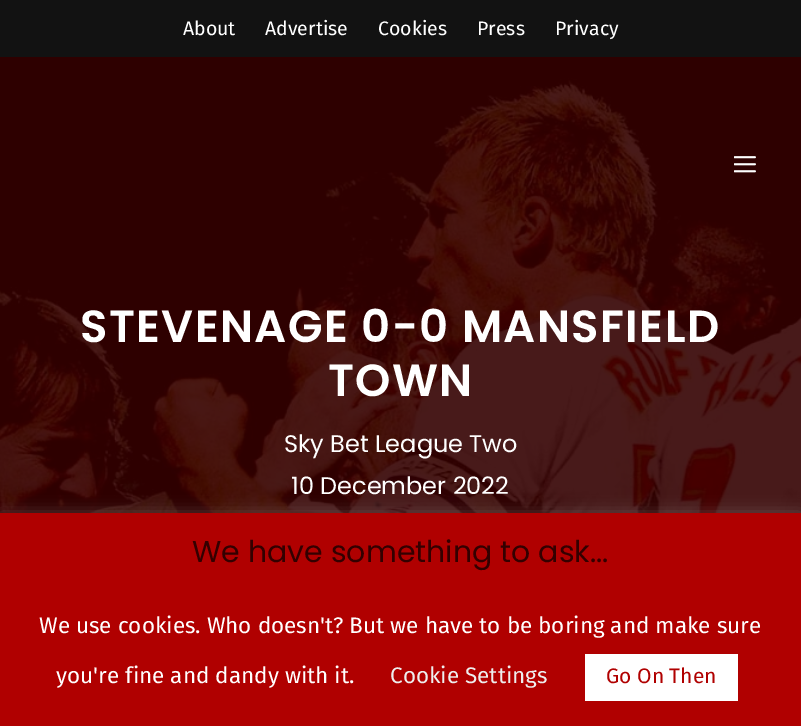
%!PS-Adobe-3.0
%%BoundingBox: 0 0 801 726
%%LanguageLevel: 3
%%Pages: 1
%%EndComments
%%BeginProlog
/m { moveto } bind def
/fn { [ exch dup neg 0 0 3 -1 roll 0 0 ] selectfont } def
/tx { moveto show } def
/bx { rectfill } def
/al { dup .setfillconstantalpha .setstrokeconstantalpha } def
/rr { 5 dict begin { /r /h /w /y /x } { exch def } forall
  x r add y moveto x w add y 2 copy h add r arct x w add y h add x 1 index r arct
  x y h add x y r arct x y 2 copy exch w add exch r arct closepath end } def
/sh { 12 dict begin { /a /b /q /h /w /y /x } { exch def } forall gsave /was 0 def
  9 -2 -9 { dup b mul 4 div /e exch def 1 sub .425 mul 2.718 exch exp 1 add a .99 .min exch div /now exch def
    1 1 now sub 1 was sub div sub al /was now def
    w h .min e 2 mul add 0 gt { x e sub y e sub w e 2 mul add h e 2 mul add
      q e add b .6 mul add w h .min 2 div e add .min 0 .max rr fill } if } for grestore end } def
/im { 5 dict begin { /h /w /y /x /name } { exch def } forall
  gsave x y translate w h scale
  w h 8 [w 0 0 h 0 0] name (r) file false 3 colorimage grestore end } def
%%EndProlog
%%BeginSetup
<< /PageSize [801 726] /PageUsesTransparency true >> setpagedevice
%%EndSetup
%%Page: 1 1
0 .pushpdf14devicefilter
0 726 translate 1 -1 scale
4 setmiterlimit
0.2 0 0 setrgbcolor
0 0 801 726 bx
0.071 setgray
0 0 801 57 bx
/FiraSans-Regular 19.5 fn
1 setgray
(About) 183 35 tx
(Advertise) 265 35 tx
(Cookies) 378 35 tx
(Press) 477 35 tx
(Privacy) 555 35 tx
(image1.raw) 0 57 801 456 im
(image0.raw) 734 156 22 17 im
/Poppins-SemiBold 45 fn
80 342 m 1.35 0 (STEVENAGE 0-0 MANSFIELD) ashow
328 396 m 1.35 0 (TOWN) ashow
/Poppins-Regular 24 fn
(Sky Bet League Two) 284 452 tx
(10 December 2022) 291 494 tx
0.675 0.671 0.671 setrgbcolor
0 512 801 213 0 7.5 0.3 sh
0.69 0 0 setrgbcolor
0 513 801 213 bx
/Poppins-Regular 30 fn
0.2 0 0 setrgbcolor
(We have something to ask...) 192 562 tx
/FiraSans-Regular 22.5 fn
1 setgray
(We use cookies. Who doesn't? But we have to be boring and make sure) 39 633 tx
(you're fine and dandy with it.) 56 683 tx
0.933 setgray
(Cookie Settings) 390 683 tx
1 setgray
585 654 153 47 bx
/FiraSans-Regular 21 fn
0.69 0 0 setrgbcolor
(Go On Then) 606 683 tx
.poppdf14devicefilter showpage
%%EOF
